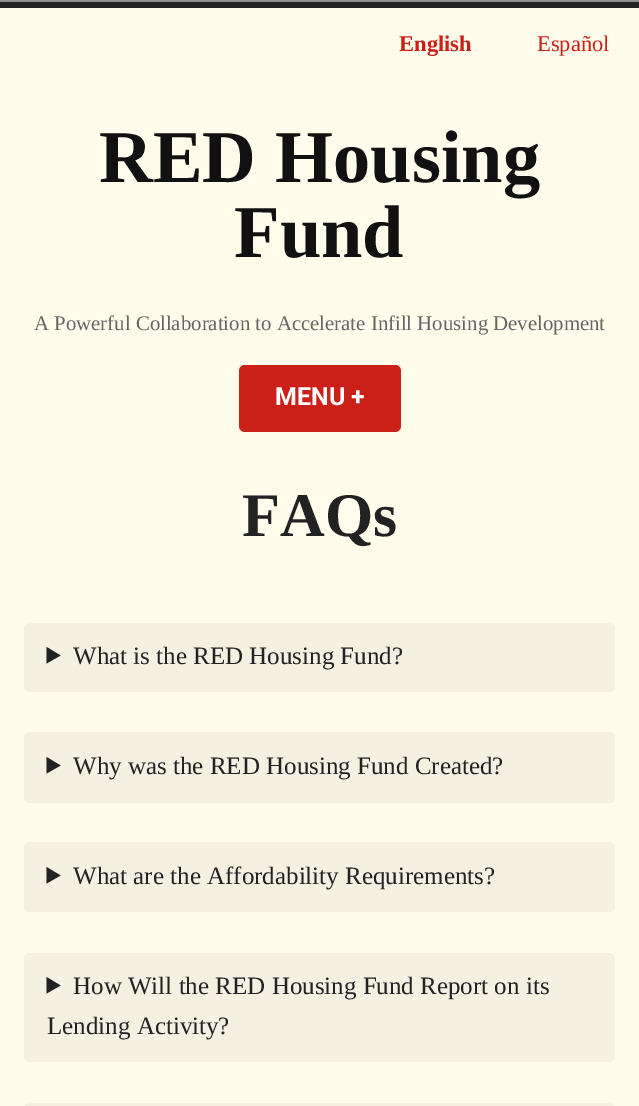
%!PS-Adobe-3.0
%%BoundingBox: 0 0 639 1106
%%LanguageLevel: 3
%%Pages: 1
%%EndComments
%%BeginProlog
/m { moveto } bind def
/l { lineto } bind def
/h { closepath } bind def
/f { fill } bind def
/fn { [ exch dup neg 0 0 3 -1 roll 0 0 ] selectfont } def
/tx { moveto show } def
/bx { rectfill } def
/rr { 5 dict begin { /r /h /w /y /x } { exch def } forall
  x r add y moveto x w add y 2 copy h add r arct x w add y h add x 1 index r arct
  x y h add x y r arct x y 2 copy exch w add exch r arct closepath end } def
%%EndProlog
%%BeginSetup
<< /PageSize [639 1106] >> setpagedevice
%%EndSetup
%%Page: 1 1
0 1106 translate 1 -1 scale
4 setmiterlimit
1 0.988 0.922 setrgbcolor
0 0 639 1106 bx
/LiberationSerif-Bold 22.5 fn
0.792 0.125 0.09 setrgbcolor
(English) 399 51 tx
/LiberationSerif-Regular 22.5 fn
(Español) 537 51 tx
0.133 setgray
0 2 639 6 bx
0.569 setgray
0 0 639 2 bx
/LiberationSerif-Bold 74.5 fn
0.067 setgray
(RED Housing) 99 182 tx
(Fund) 234 257 tx
/LiberationSerif-Regular 20.8 fn
0.4 setgray
(A Powerful Collaboration to Accelerate Infill Housing Development) 34 330 tx
0.792 0.125 0.09 setrgbcolor
239 365 162 67 6 rr f
/Roboto-Bold 25 fn
1 setgray
(MENU +) 275 405 tx
/LiberationSerif-Bold 62 fn
0.133 setgray
(FAQs) 242 536 tx
0.957 0.945 0.89 setrgbcolor
24 623 591 69 6 rr f
0.133 setgray
46.5 647 m 60.5 655.5 l 46.5 663.5 l h f
/LiberationSerif-Regular 25 fn
(What is the RED Housing Fund?) 73 664 tx
0.957 0.945 0.89 setrgbcolor
24 732 591 71 6 rr f
0.133 setgray
46.5 757 m 60.5 765.5 l 46.5 773.5 l h f
(Why was the RED Housing Fund Created?) 73 774 tx
0.957 0.945 0.89 setrgbcolor
24 842 591 70 6 rr f
0.133 setgray
46.5 867 m 60.5 875.5 l 46.5 883.5 l h f
(What are the Affordability Requirements?) 73 884 tx
0.957 0.945 0.89 setrgbcolor
24 953 591 109 6 rr f
0.133 setgray
46.5 977 m 60.5 985.5 l 46.5 993.5 l h f
(How Will the RED Housing Fund Report on its) 73 994 tx
(Lending Activity?) 47 1034 tx
0.957 0.945 0.89 setrgbcolor
24 1103 591 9 6 rr f
showpage
%%EOF
